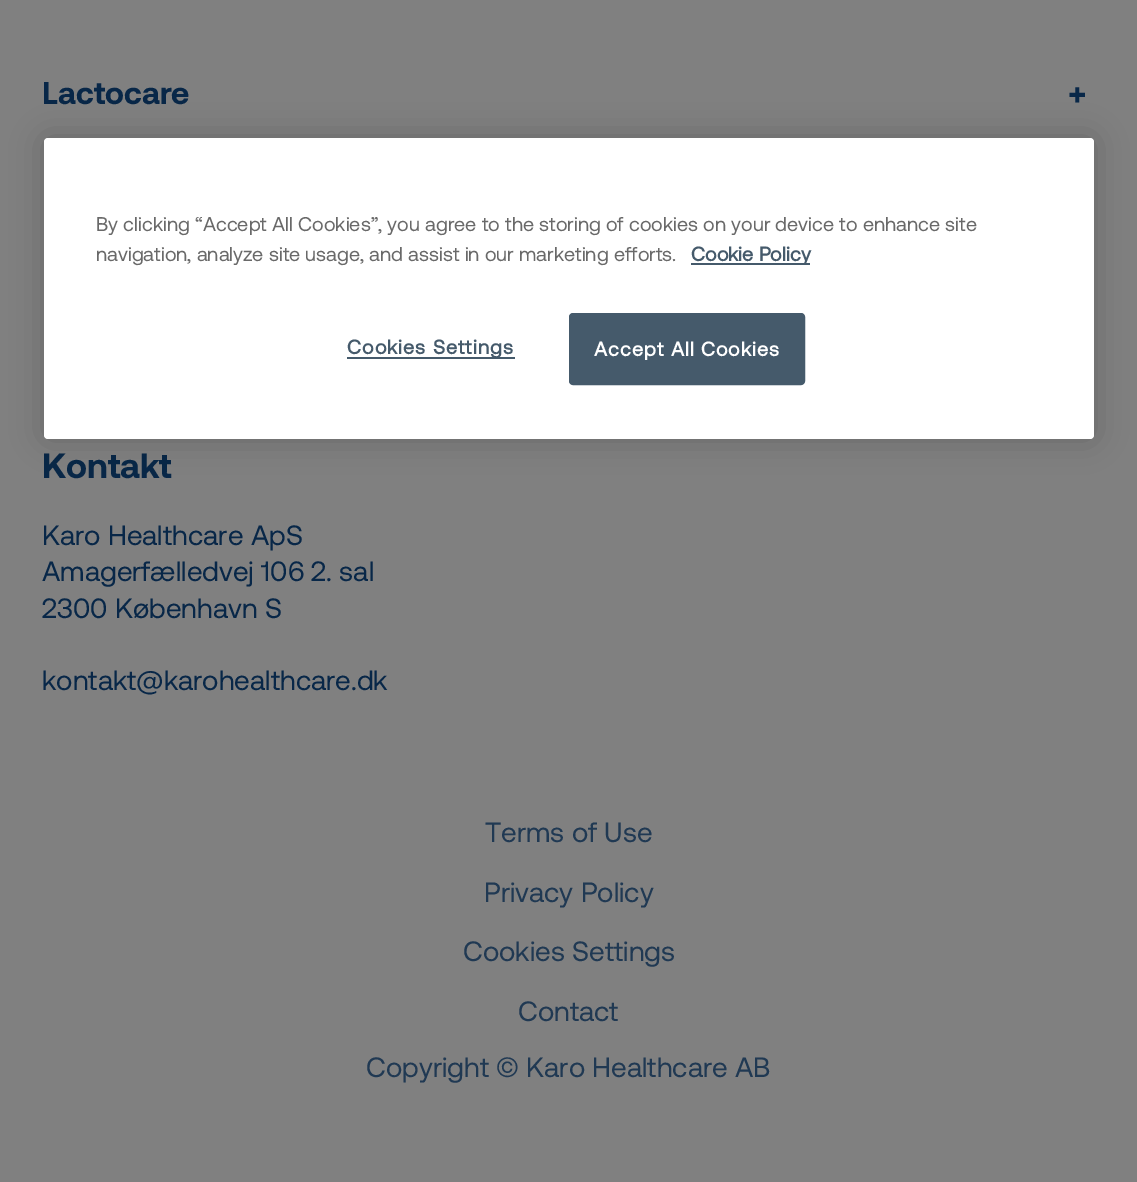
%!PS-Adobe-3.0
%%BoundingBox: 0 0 1137 1182
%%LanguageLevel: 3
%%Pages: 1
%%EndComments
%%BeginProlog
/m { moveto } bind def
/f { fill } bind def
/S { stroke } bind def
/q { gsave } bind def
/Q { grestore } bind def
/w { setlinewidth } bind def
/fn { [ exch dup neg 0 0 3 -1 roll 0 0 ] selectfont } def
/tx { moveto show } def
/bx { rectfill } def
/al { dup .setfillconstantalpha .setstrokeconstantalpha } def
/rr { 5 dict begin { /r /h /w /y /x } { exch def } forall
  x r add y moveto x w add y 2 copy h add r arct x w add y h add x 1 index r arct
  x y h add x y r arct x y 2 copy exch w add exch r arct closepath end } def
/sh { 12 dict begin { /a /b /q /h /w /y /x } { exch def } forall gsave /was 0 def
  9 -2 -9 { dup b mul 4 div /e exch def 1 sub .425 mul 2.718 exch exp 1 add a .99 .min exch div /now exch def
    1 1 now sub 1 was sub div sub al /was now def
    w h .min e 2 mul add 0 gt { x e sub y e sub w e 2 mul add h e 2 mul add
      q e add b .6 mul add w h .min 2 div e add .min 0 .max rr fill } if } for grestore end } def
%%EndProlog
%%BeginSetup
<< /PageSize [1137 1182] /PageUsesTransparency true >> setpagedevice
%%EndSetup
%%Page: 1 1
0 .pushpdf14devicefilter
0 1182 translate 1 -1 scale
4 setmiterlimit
0.502 setgray
0 0 1137 1182 bx
/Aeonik-Bold 31.5 fn
0.031 0.153 0.282 setrgbcolor
(Lactocare) 42 104 tx
/NotoSans-Black 31.5 fn
(+) 1068 106 tx
/Aeonik-Bold 35 fn
(Kontakt) 42 478 tx
/Aeonik-Regular 28 fn
(Karo Healthcare ApS) 42 545 tx
(Amagerfælledvej 106 2. sal) 42 581 tx
(2300 København S) 42 618 tx
(kontakt@karohealthcare.dk) 42 690 tx
0.125 0.224 0.325 setrgbcolor
(Terms of Use) 485 842 tx
(Privacy Policy) 484 902 tx
(Cookies Settings) 463 961 tx
(Contact) 518 1021 tx
(Copyright © Karo Healthcare AB) 366 1077 tx
0 setgray
44 138 1050 301 4 16 0.2 sh
1 setgray
44 138 1050 301 4 rr f
/Aeonik-Regular 19.9 fn
0.412 setgray
(By clicking “Accept All Cookies”, you agree to the storing of cookies on your device to enhance site) 96 231 tx
(navigation, analyze site usage, and assist in our marketing efforts.) 96 261 tx
0.271 0.353 0.42 setrgbcolor
691 263 119 2 bx
/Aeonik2-Bold 19.9 fn
(Cookie Policy) 691 261 tx
347 357 168 2 bx
347 354 m 1 0 (Cookies Settings) ashow
570 314 234 70 3 rr q f Q
2 w
S
1 setgray
594 356 m 1 0 (Accept All Cookies) ashow
.poppdf14devicefilter showpage
%%EOF
